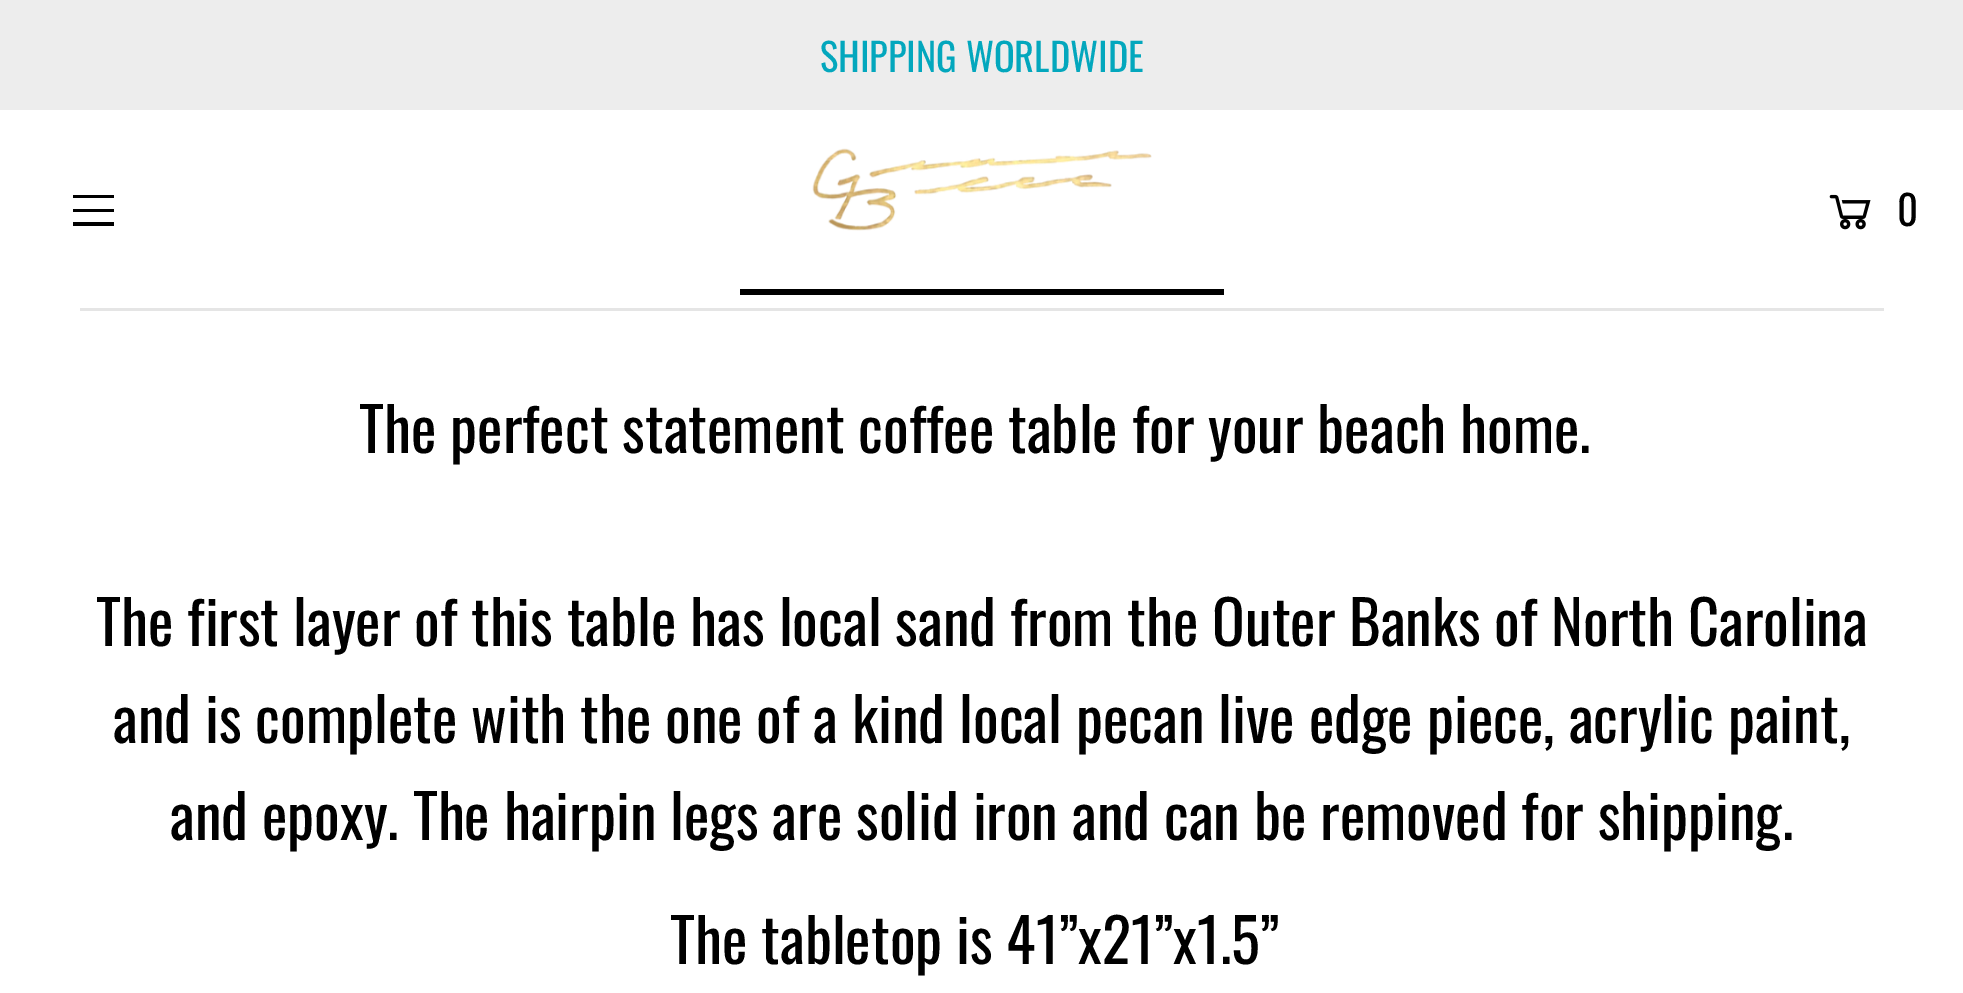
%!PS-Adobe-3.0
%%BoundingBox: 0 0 1963 993
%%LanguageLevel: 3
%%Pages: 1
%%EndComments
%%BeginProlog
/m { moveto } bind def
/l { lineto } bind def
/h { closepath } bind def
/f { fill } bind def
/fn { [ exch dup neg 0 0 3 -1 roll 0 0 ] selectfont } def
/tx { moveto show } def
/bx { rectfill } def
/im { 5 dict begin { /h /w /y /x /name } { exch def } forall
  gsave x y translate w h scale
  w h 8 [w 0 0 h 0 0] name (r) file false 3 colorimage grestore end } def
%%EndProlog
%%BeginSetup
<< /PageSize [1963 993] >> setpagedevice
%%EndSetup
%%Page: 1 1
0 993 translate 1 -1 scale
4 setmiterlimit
1 setgray
0 0 1963 993 bx
0.929 setgray
0 0 1963 110 bx
/Oswald-Regular 38.5 fn
0.012 0.655 0.741 setrgbcolor
(SHIPPING WORLDWIDE) 820 72 tx
0 setgray
73 195 m 114 195 l 114 198 l 73 198 l h 73 209 m 114 209 l 114 212 l 73 212 l h 73 222 m 114 222 l 114 226 l 73 226 l h f
(image0.raw) 812 148 340 83 im
(image1.raw) 1829 194 42 36 im
/Oswald-Regular 41 fn
(0) 1897 226 tx
0.898 setgray
80 308 1804 3 bx
0 setgray
740 289 484 6 bx
/Oswald-Regular 60.5 fn
(The perfect statement coffee table for your beach home.) 359 453 tx
(The first layer of this table has local sand from the Outer Banks of North Carolina) 96 646 tx
(and is complete with the one of a kind local pecan live edge piece, acrylic paint,) 113 743 tx
(and epoxy. The hairpin legs are solid iron and can be removed for shipping.) 170 840 tx
(The tabletop is 41”x21”x1.5”) 670 964 tx
showpage
%%EOF
